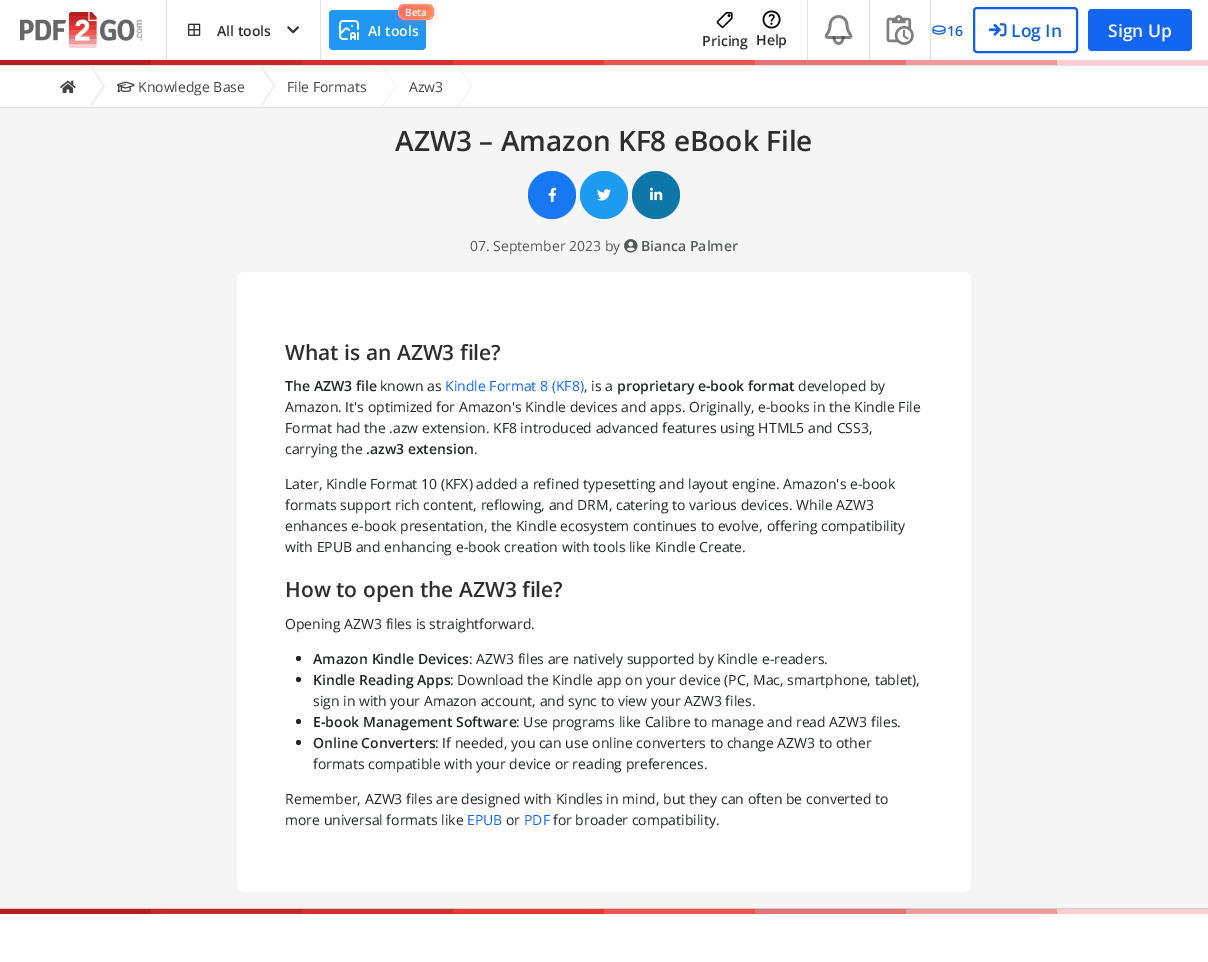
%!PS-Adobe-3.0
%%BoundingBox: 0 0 1208 962
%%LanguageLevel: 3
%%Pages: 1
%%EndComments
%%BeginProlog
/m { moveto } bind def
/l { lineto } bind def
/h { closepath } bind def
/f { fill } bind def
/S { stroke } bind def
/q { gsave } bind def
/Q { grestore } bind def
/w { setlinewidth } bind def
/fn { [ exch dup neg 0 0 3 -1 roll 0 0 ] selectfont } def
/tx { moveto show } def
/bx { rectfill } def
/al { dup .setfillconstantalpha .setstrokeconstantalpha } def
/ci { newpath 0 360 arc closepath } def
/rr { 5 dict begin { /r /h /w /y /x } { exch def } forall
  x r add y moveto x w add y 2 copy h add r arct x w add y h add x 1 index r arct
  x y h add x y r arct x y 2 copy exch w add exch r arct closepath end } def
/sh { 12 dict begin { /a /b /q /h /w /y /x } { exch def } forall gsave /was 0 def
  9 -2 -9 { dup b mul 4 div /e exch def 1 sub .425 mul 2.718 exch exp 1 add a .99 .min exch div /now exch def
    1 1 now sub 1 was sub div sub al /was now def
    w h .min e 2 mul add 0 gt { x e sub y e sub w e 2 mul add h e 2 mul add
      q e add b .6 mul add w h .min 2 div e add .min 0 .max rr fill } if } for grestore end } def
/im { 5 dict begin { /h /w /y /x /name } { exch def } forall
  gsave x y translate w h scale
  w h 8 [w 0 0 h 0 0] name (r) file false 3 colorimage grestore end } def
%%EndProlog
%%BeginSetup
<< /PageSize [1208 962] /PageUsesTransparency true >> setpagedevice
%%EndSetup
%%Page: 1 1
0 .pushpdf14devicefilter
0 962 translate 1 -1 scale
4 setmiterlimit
0.961 setgray
0 0 1208 962 bx
1 setgray
0 0 1208 60 bx
(image0.raw) 20 12 122 36 im
0.871 0.886 0.902 setrgbcolor
320 0 1 60 bx
166 0 1 60 bx
(image1.raw) 188 23 13 13 im
/OpenSans-SemiBold 14 fn
0.18 setgray
(All tools) 217 36 tx
(image2.raw) 287 26 12 8 im
0.129 0.588 0.953 setrgbcolor
329 10 97 40 4 rr f
1 0.42 0.42 setrgbcolor
398 6 36 16 8 4 0.3 sh
q
398 4 36 16 8 rr clip newpath
q 399 4 m 433 4 l 433 5 l 399 5 l h clip newpath
<< /ShadingType 2 /ColorSpace /DeviceRGB /Coords [404 -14 428 10] /Extend [true true] /Function << /FunctionType 2 /Domain [0 1] /C0 [1 0.42 0.42] /C1 [1 0.557 0.325] /N 1 >> >> shfill Q
q 398 5 m 399 5 l 399 19 l 398 19 l h clip newpath
<< /ShadingType 2 /ColorSpace /DeviceRGB /Coords [370 0 394 24] /Extend [true true] /Function << /FunctionType 2 /Domain [0 1] /C0 [1 0.42 0.42] /C1 [1 0.557 0.325] /N 1 >> >> shfill Q
q 399 5 m 433 5 l 433 19 l 399 19 l h clip newpath
<< /ShadingType 2 /ColorSpace /DeviceRGB /Coords [404 0 428 24] /Extend [true true] /Function << /FunctionType 2 /Domain [0 1] /C0 [1 0.42 0.42] /C1 [1 0.557 0.325] /N 1 >> >> shfill Q
q 433 5 m 434 5 l 434 19 l 433 19 l h clip newpath
<< /ShadingType 2 /ColorSpace /DeviceRGB /Coords [438 0 462 24] /Extend [true true] /Function << /FunctionType 2 /Domain [0 1] /C0 [1 0.42 0.42] /C1 [1 0.557 0.325] /N 1 >> >> shfill Q
q 399 19 m 433 19 l 433 20 l 399 20 l h clip newpath
<< /ShadingType 2 /ColorSpace /DeviceRGB /Coords [404 14 428 38] /Extend [true true] /Function << /FunctionType 2 /Domain [0 1] /C0 [1 0.42 0.42] /C1 [1 0.557 0.325] /N 1 >> >> shfill Q
Q
0.2 al
1 setgray
398.5 4.5 35 15 7.5 rr S
/OpenSans-SemiBold 10 fn
1 al
(Beta) 405 16 tx
(image3.raw) 339 20 20 20 im
/OpenSans-SemiBold 14 fn
(AI tools) 368 36 tx
(image4.raw) 716 12 17 16 im
0.18 setgray
(Pricing) 702 46 tx
(image5.raw) 762 10 19 19 im
(Help) 756 45 tx
0.871 0.886 0.902 setrgbcolor
807 0 1 60 bx
(image6.raw) 824 15 29 30 im
869 0 1 60 bx
(image7.raw) 886 15 28 30 im
930 0 1 60 bx
(image8.raw) 932 25 14 10 im
0.067 0.38 0.898 setrgbcolor
(16) 947 36 tx
2 w
974 8 103 44 3 rr S
(image9.raw) 989 23 18 14 im
/OpenSans-SemiBold 17.5 fn
(Log In) 1011 37 tx
0.071 0.4 0.945 setrgbcolor
1088 9 104 42 4 rr f
1 setgray
(Sign Up) 1108 37 tx
0.718 0.11 0.11 setrgbcolor
0 60 151 5 bx
0.776 0.157 0.157 setrgbcolor
151 60 151 5 bx
0.827 0.184 0.184 setrgbcolor
302 60 151 5 bx
0.898 0.224 0.208 setrgbcolor
453 60 151 5 bx
0.937 0.325 0.314 setrgbcolor
604 60 151 5 bx
0.898 0.451 0.451 setrgbcolor
755 60 151 5 bx
0.937 0.604 0.604 setrgbcolor
906 60 151 5 bx
1 0.804 0.824 setrgbcolor
1057 60 151 5 bx
1 setgray
0 66 1208 41 bx
0.871 0.886 0.902 setrgbcolor
0 65 1208 1 bx
0 107 1208 1 bx
0.914 0.925 0.937 setrgbcolor
91 107 m 91 65 l 105 86 l h f
1 setgray
89 107 m 89 65 l 103 86 l h f
(image10.raw) 60 80 16 13 im
0.914 0.925 0.937 setrgbcolor
261 107 m 261 65 l 275 86 l h f
1 setgray
259 107 m 259 65 l 273 86 l h f
(image11.raw) 117 81 18 12 im
/OpenSans-Regular 14 fn
0.267 setgray
(Knowledge Base) 138 92 tx
0.914 0.925 0.937 setrgbcolor
382 107 m 382 65 l 396 86 l h f
1 setgray
381 107 m 381 65 l 395 86 l h f
0.267 setgray
(File Formats) 287 92 tx
0.914 0.925 0.937 setrgbcolor
458 107 m 458 65 l 472 86 l h f
1 setgray
457 107 m 457 65 l 471 86 l h f
0.267 setgray
(Azw3) 409 92 tx
/OpenSans-SemiBold 28 fn
0.18 setgray
(AZW3 – Amazon KF8 eBook File) 395 151 tx
0.094 0.467 0.949 setrgbcolor
552 195 24 ci f
(image12.raw) 548 187 9 15 im
0.114 0.608 0.941 setrgbcolor
604 195 24 ci f
(image13.raw) 597 189 14 12 im
0.055 0.463 0.659 setrgbcolor
656 195 24 ci f
(image14.raw) 650 187 13 14 im
/OpenSans-Regular 14 fn
0.337 0.349 0.361 setrgbcolor
(07. September 2023 by) 470 251 tx
(image15.raw) 624 239 14 14 im
/OpenSans-SemiBold 14 fn
(Bianca Palmer) 641 251 tx
1 setgray
237 272 734 620 8 rr f
/OpenSans-SemiBold 21 fn
0.18 setgray
(What is an AZW3 file?) 285 360 tx
/OpenSans-SemiBold 14 fn
0.129 0.145 0.161 setrgbcolor
(The AZW3 file) 285 391 tx
/OpenSans-Regular 14 fn
(known as) 380 391 tx
0.071 0.4 0.945 setrgbcolor
(Kindle Format 8 \(KF8\)) 445 391 tx
0.129 0.145 0.161 setrgbcolor
(, is a) 584 391 tx
/OpenSans-SemiBold 14 fn
(proprietary e-book format) 617 391 tx
/OpenSans-Regular 14 fn
(developed by) 798 391 tx
(Amazon. It's optimized for Amazon's Kindle devices and apps. Originally, e-books in the Kindle File) 285 412 tx
(Format had the .azw extension. KF8 introduced advanced features using HTML5 and CSS3,) 285 433 tx
(carrying the) 285 454 tx
/OpenSans-SemiBold 14 fn
(.azw3 extension) 366 454 tx
/OpenSans-Regular 14 fn
(.) 474 454 tx
(Later, Kindle Format 10 \(KFX\) added a refined typesetting and layout engine. Amazon's e-book) 285 489 tx
(formats support rich content, reflowing, and DRM, catering to various devices. While AZW3) 285 510 tx
(enhances e-book presentation, the Kindle ecosystem continues to evolve, offering compatibility) 285 531 tx
(with EPUB and enhancing e-book creation with tools like Kindle Create.) 285 552 tx
/OpenSans-SemiBold 21 fn
0.18 setgray
(How to open the AZW3 file?) 285 597 tx
/OpenSans-Regular 14 fn
0.129 0.145 0.161 setrgbcolor
(Opening AZW3 files is straightforward.) 285 629 tx
298.5 658.5 2.5 ci f
/OpenSans-SemiBold 14 fn
(Amazon Kindle Devices) 313 664 tx
/OpenSans-Regular 14 fn
(: AZW3 files are natively supported by Kindle e-readers.) 469 664 tx
298.5 679.5 2.5 ci f
/OpenSans-SemiBold 14 fn
(Kindle Reading Apps) 313 685 tx
/OpenSans-Regular 14 fn
(: Download the Kindle app on your device \(PC, Mac, smartphone, tablet\),) 450 685 tx
(sign in with your Amazon account, and sync to view your AZW3 files.) 313 706 tx
298.5 721.5 2.5 ci f
/OpenSans-SemiBold 14 fn
(E-book Management Software) 313 727 tx
/OpenSans-Regular 14 fn
(: Use programs like Calibre to manage and read AZW3 files.) 516 727 tx
298.5 742.5 2.5 ci f
/OpenSans-SemiBold 14 fn
(Online Converters) 313 748 tx
/OpenSans-Regular 14 fn
(: If needed, you can use online converters to change AZW3 to other) 435 748 tx
(formats compatible with your device or reading preferences.) 313 769 tx
(Remember, AZW3 files are designed with Kindles in mind, but they can often be converted to) 285 804 tx
(more universal formats like) 285 825 tx
0.071 0.4 0.945 setrgbcolor
(EPUB) 467 825 tx
0.129 0.145 0.161 setrgbcolor
(or) 506 825 tx
0.071 0.4 0.945 setrgbcolor
(PDF) 524 825 tx
0.129 0.145 0.161 setrgbcolor
(for broader compatibility.) 553 825 tx
1 setgray
0 914 1208 48 bx
0.8 setgray
0 908 1208 1 bx
0.718 0.11 0.11 setrgbcolor
0 909 151 5 bx
0.776 0.157 0.157 setrgbcolor
151 909 151 5 bx
0.827 0.184 0.184 setrgbcolor
302 909 151 5 bx
0.898 0.224 0.208 setrgbcolor
453 909 151 5 bx
0.937 0.325 0.314 setrgbcolor
604 909 151 5 bx
0.898 0.451 0.451 setrgbcolor
755 909 151 5 bx
0.937 0.604 0.604 setrgbcolor
906 909 151 5 bx
1 0.804 0.824 setrgbcolor
1057 909 151 5 bx
.poppdf14devicefilter showpage
%%EOF
